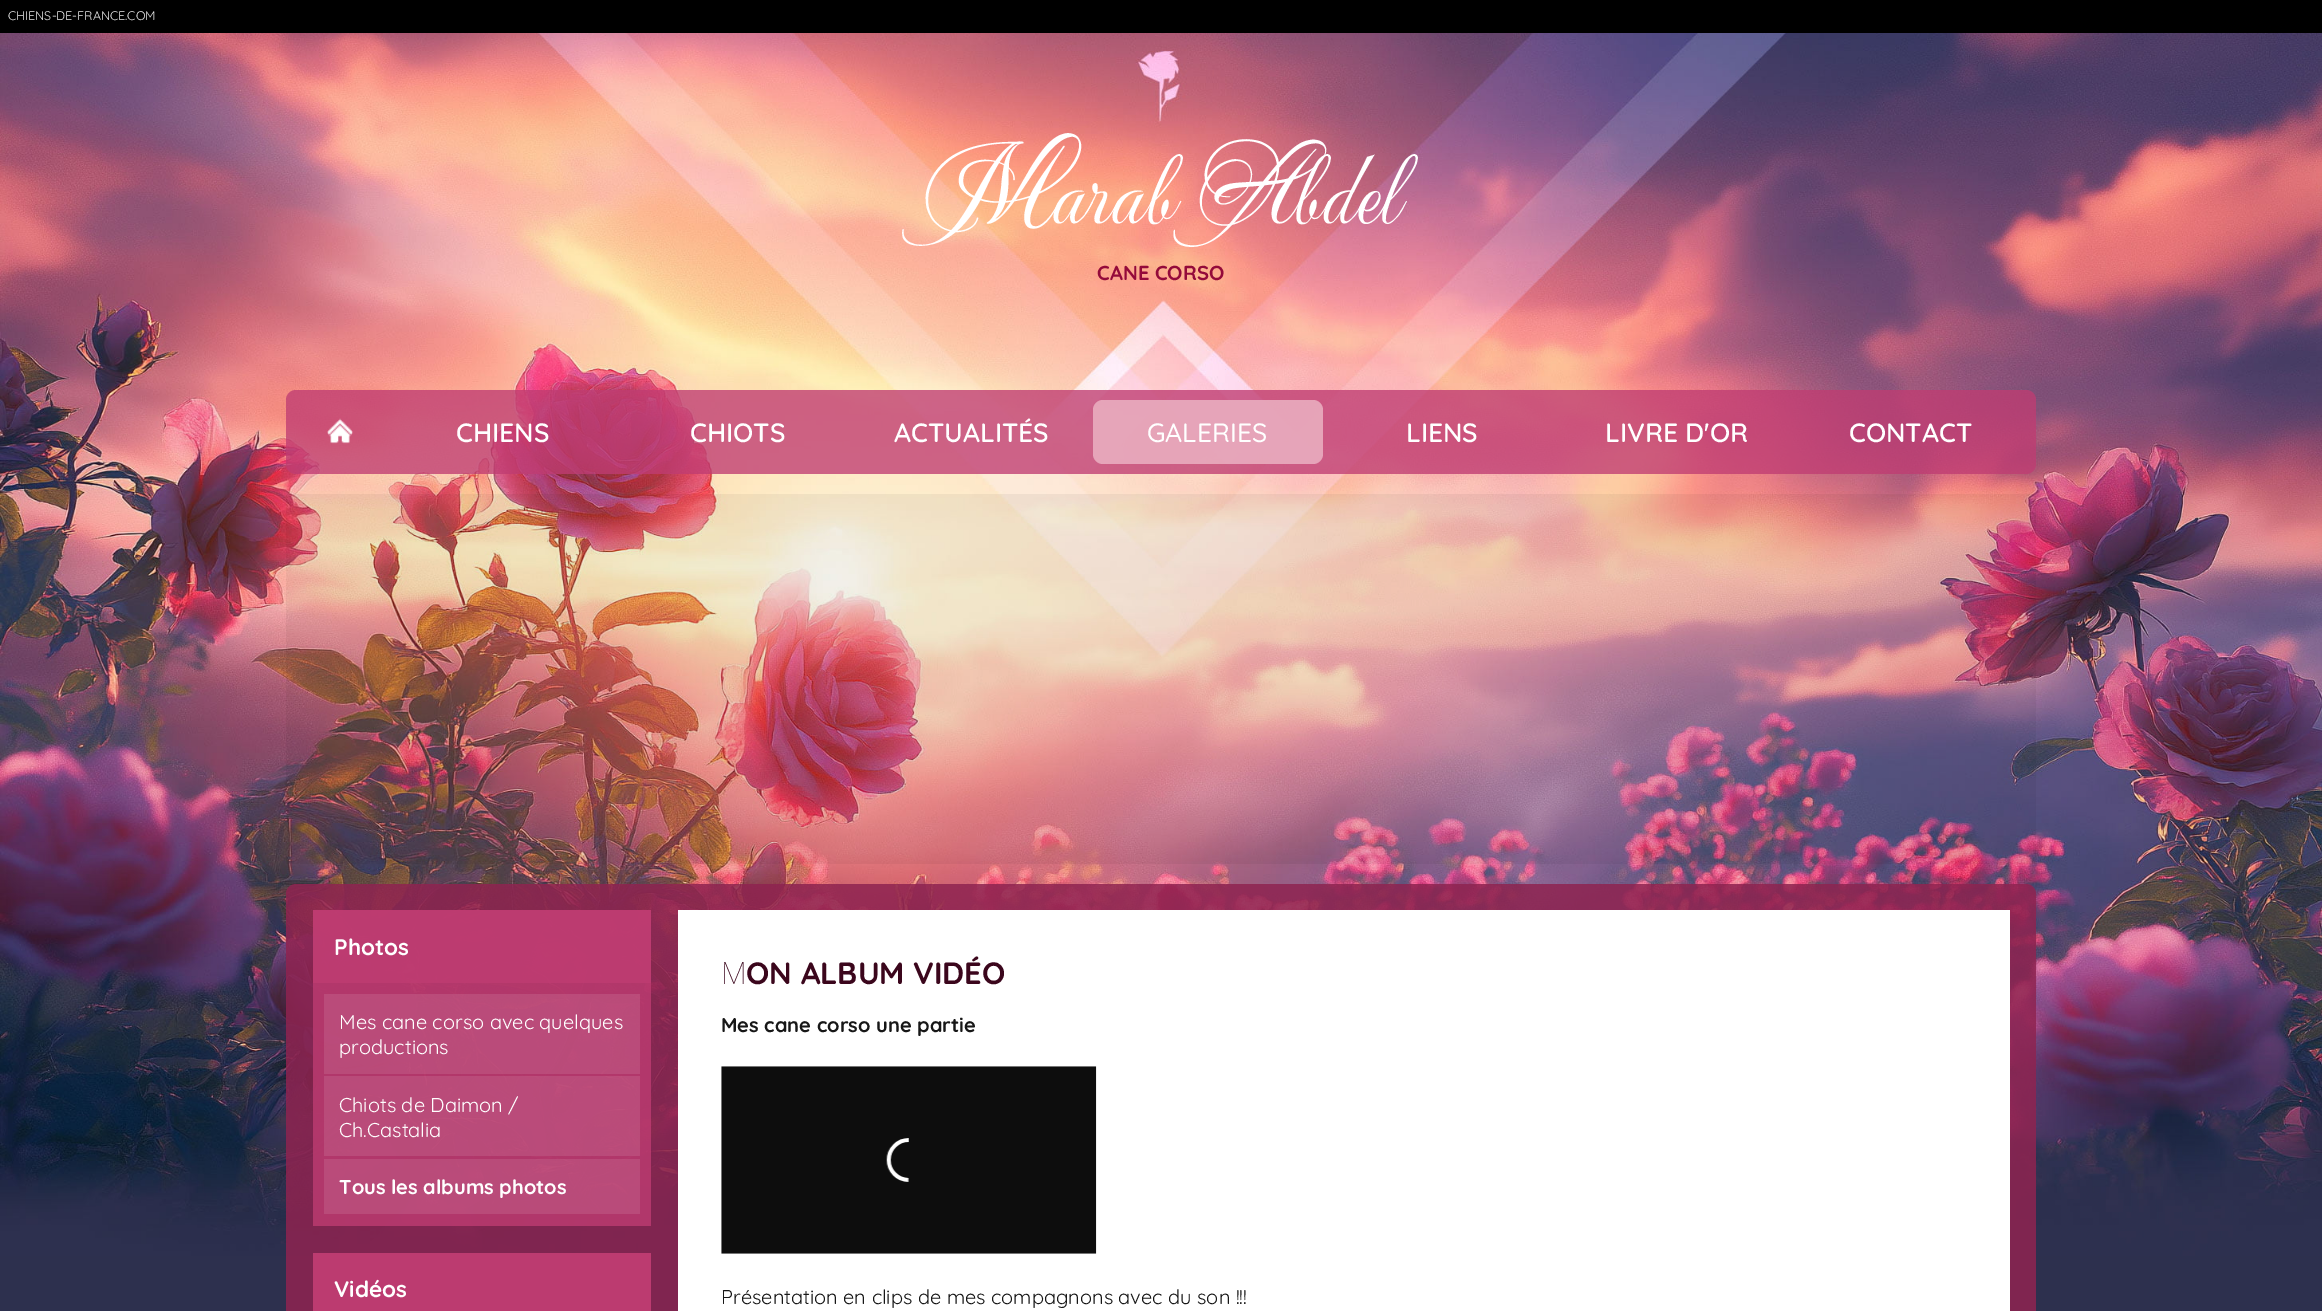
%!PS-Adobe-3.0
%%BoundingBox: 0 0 2322 1311
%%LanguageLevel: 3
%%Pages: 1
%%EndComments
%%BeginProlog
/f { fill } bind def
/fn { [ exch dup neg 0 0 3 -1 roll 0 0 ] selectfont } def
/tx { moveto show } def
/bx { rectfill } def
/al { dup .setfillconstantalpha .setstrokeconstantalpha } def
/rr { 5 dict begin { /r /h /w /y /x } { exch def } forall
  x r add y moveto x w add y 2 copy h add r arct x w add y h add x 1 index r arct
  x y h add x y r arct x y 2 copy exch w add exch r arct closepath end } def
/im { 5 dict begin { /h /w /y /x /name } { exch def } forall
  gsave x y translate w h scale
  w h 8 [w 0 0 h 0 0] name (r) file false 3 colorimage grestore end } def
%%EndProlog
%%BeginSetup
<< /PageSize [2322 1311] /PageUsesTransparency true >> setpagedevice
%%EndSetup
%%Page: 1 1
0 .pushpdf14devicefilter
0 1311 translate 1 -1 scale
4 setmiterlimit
0.176 0.188 0.306 setrgbcolor
0 0 2322 1311 bx
(image0.raw) 0 33 2322 1223 im
0 setgray
0 0 2322 33 bx
/Quicksand-Regular 12.5 fn
0.933 setgray
(CHIENS-DE-FRANCE.COM) 8 20 tx
/MeaCulpa-Regular 105 fn
1 setgray
(Marab Abdel) 925 223 tx
/Quicksand-Bold 20.25 fn
0.58 0.039 0.227 setrgbcolor
(CANE CORSO) 1097 280 tx
0.78 al
0.749 0.235 0.447 setrgbcolor
286 390 1750 84 10 rr f
1 al
(image1.raw) 327 418 26 26 im
/Quicksand-SemiBold 26.5 fn
1 setgray
(CHIENS) 456 442 tx
(CHIOTS) 690 442 tx
(ACTUALITÉS) 894 442 tx
0.89 al
0.914 0.678 0.749 setrgbcolor
1093 400 230 64 10 rr f
/Quicksand-Medium 26.5 fn
1 al
1 setgray
(GALERIES) 1147 442 tx
/Quicksand-SemiBold 26.5 fn
(LIENS) 1406 442 tx
(LIVRE D'OR) 1605 442 tx
(CONTACT) 1849 442 tx
0.05 al
0 setgray
286 494 1750 370 bx
0.85 al
0.557 0.137 0.314 setrgbcolor
286 884 1750 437 10 rr f
0.78 al
0.749 0.235 0.447 setrgbcolor
313 910 338 316 bx
313 910 338 73 bx
/Quicksand-Bold 22.5 fn
1 al
1 setgray
(Photos) 334 955 tx
0.1 al
324 994 316 80 bx
/Quicksand-Regular 20 fn
1 al
(Mes cane corso avec quelques) 339 1029 tx
(productions) 339 1054 tx
0.1 al
324 1076 316 80 bx
1 al
(Chiots de Daimon /) 339 1112 tx
(Ch.Castalia) 339 1137 tx
0.1 al
324 1159 316 55 bx
/Quicksand-Bold 20 fn
1 al
(Tous les albums photos) 339 1194 tx
0.737 0.231 0.439 setrgbcolor
313 1253 338 58 bx
/Quicksand-Bold 22.5 fn
1 setgray
(Vidéos) 334 1297 tx
678 910 1332 401 bx
/NotoSans-Thin 30.75 fn
0.231 0.024 0.11 setrgbcolor
(M) 721 984 tx
/Quicksand-Bold 30.75 fn
(ON ALBUM VIDÉO) 746 984 tx
/Quicksand-Bold 20 fn
0.09 setgray
(Mes cane corso une partie) 721 1032 tx
(image2.raw) 721 1066 376 188 im
/Quicksand-Regular 20 fn
(Présentation en clips de mes compagnons avec du son !!!) 721 1304 tx
.poppdf14devicefilter showpage
%%EOF
